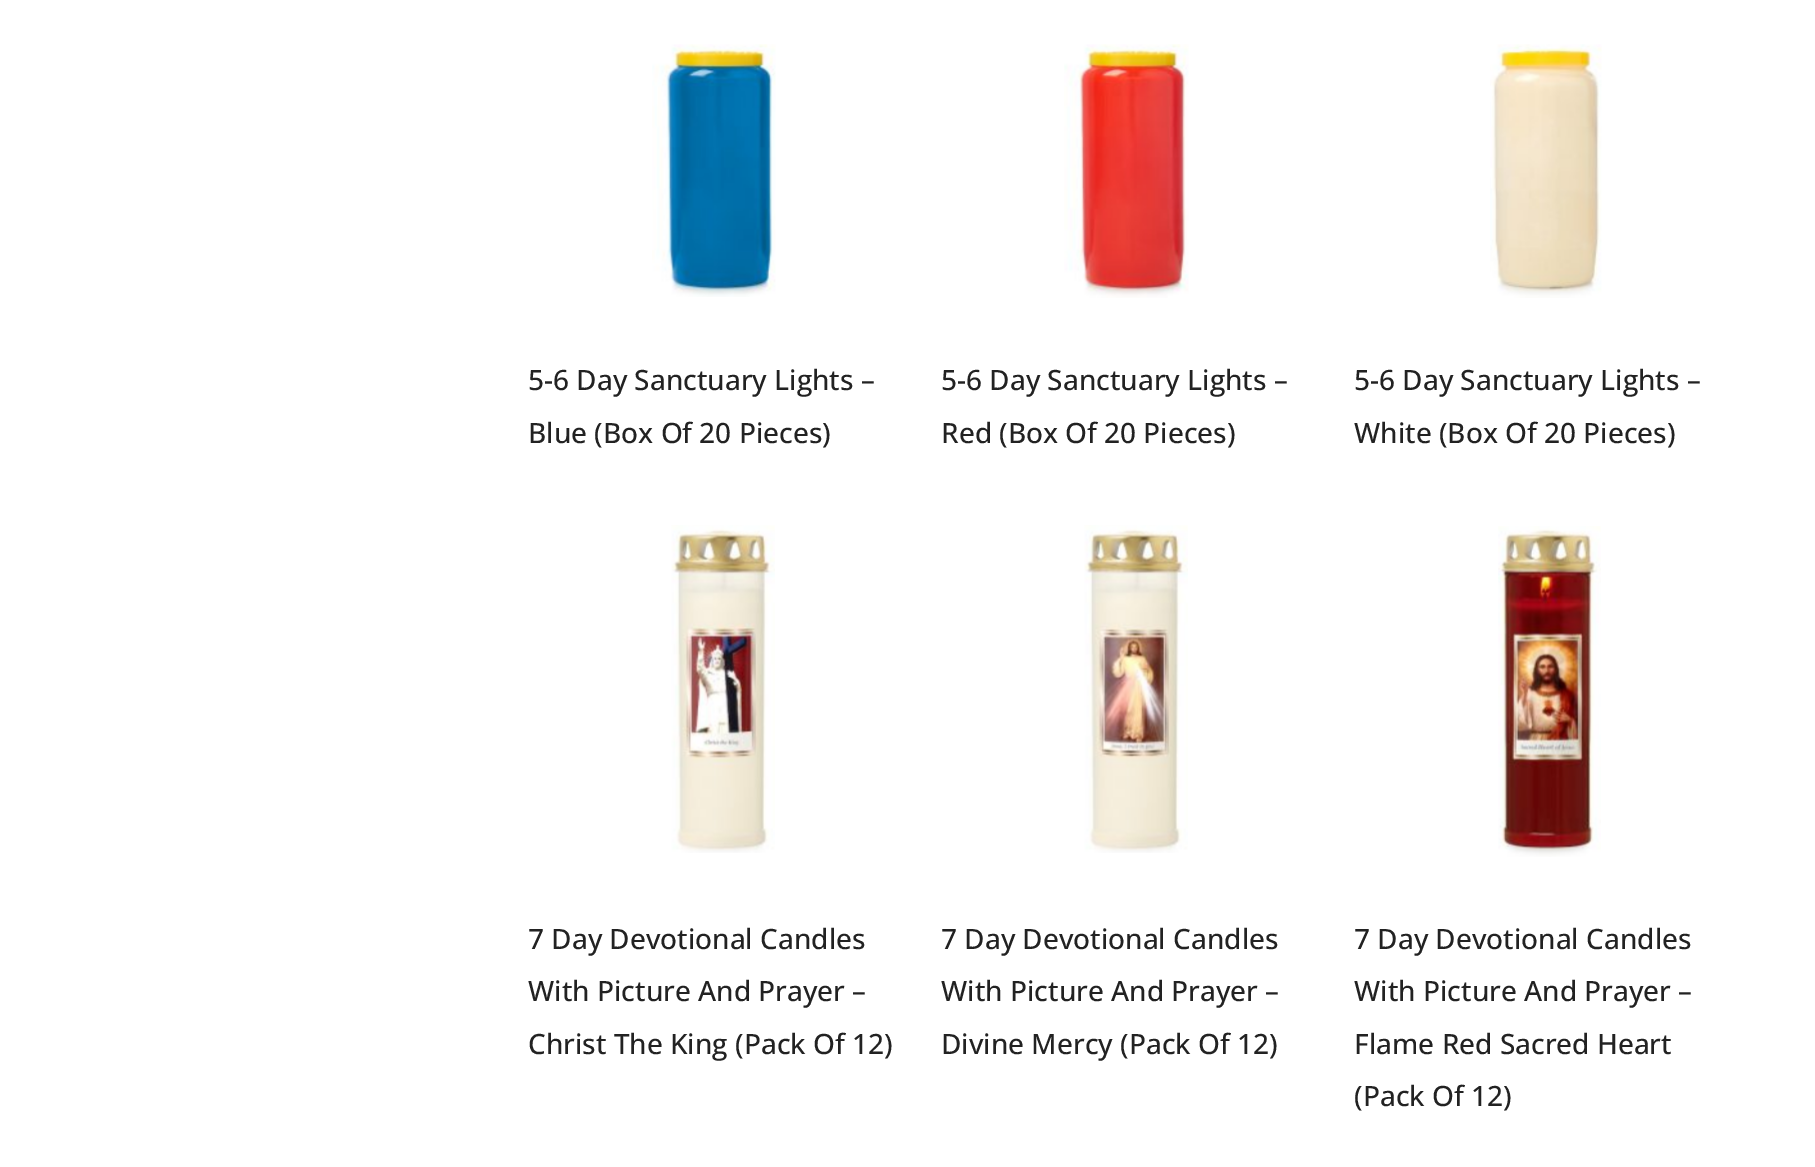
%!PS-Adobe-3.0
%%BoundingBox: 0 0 1815 1167
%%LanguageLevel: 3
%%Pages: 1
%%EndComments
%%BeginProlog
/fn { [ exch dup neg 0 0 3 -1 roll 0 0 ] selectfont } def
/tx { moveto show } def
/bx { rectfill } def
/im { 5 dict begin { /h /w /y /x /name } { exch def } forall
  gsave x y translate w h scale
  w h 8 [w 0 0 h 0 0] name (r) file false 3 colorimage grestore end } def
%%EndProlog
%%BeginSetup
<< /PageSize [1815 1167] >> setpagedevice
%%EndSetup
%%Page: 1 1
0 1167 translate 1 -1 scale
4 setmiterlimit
1 setgray
0 0 1815 1167 bx
(image0.raw) 652 44 124 253 im
/OpenSans-Medium 28 fn
0.133 setgray
(5-6 Day Sanctuary Lights –) 528 390 tx
(Blue \(Box Of 20 Pieces\)) 528 443 tx
(image1.raw) 1064 44 125 254 im
(5-6 Day Sanctuary Lights –) 941 390 tx
(Red \(Box Of 20 Pieces\)) 941 443 tx
(image2.raw) 1490 44 112 254 im
(5-6 Day Sanctuary Lights –) 1354 390 tx
(White \(Box Of 20 Pieces\)) 1354 443 tx
(image3.raw) 671 525 104 328 im
(7 Day Devotional Candles) 528 949 tx
(With Picture And Prayer –) 528 1001 tx
(Christ The King \(Pack Of 12\)) 528 1054 tx
(image4.raw) 1084 525 104 328 im
(7 Day Devotional Candles) 941 949 tx
(With Picture And Prayer –) 941 1001 tx
(Divine Mercy \(Pack Of 12\)) 941 1054 tx
(image5.raw) 1498 526 103 331 im
(7 Day Devotional Candles) 1354 949 tx
(With Picture And Prayer –) 1354 1001 tx
(Flame Red Sacred Heart) 1354 1054 tx
(\(Pack Of 12\)) 1354 1106 tx
showpage
%%EOF
